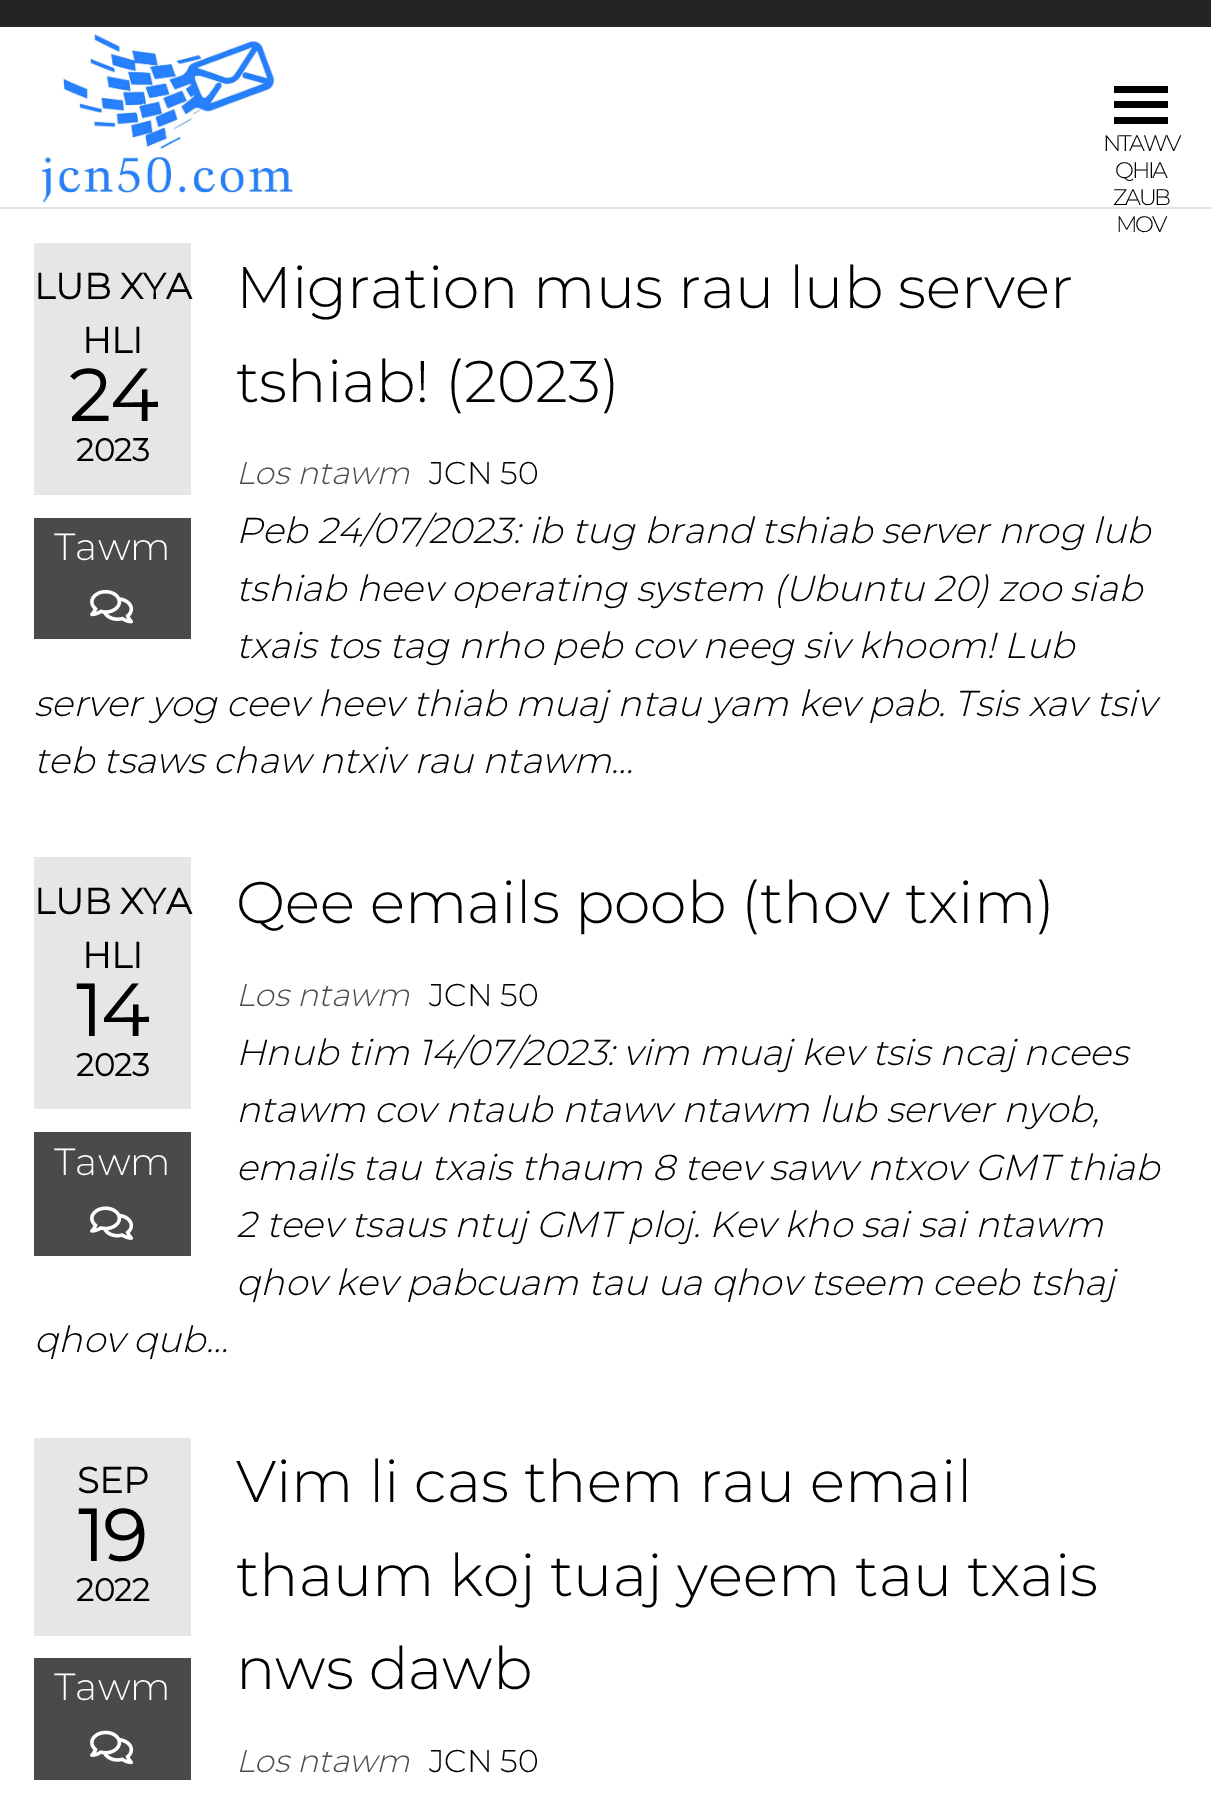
%!PS-Adobe-3.0
%%BoundingBox: 0 0 1211 1800
%%LanguageLevel: 3
%%Pages: 1
%%EndComments
%%BeginProlog
/m { moveto } bind def
/fn { [ exch dup neg 0 0 3 -1 roll 0 0 ] selectfont } def
/tx { moveto show } def
/bx { rectfill } def
/im { 5 dict begin { /h /w /y /x /name } { exch def } forall
  gsave x y translate w h scale
  w h 8 [w 0 0 h 0 0] name (r) file false 3 colorimage grestore end } def
%%EndProlog
%%BeginSetup
<< /PageSize [1211 1800] >> setpagedevice
%%EndSetup
%%Page: 1 1
0 1800 translate 1 -1 scale
4 setmiterlimit
1 setgray
0 0 1211 1800 bx
0.141 setgray
0 0 1211 27 bx
0.886 setgray
0 207 1211 2 bx
(image0.raw) 41 34 252 170 im
0 setgray
1114 86 54 7 bx
1114 101 54 7 bx
1114 117 54 7 bx
/Montserrat-Thin 22.5 fn
1103 151 m -2.25 0 (NTAWV) ashow
1115 178 m -2.25 0 (QHIA) ashow
1113 205 m -2.25 0 (ZAUB) ashow
1116 232 m -2.25 0 (MOV) ashow
0.902 setgray
34 243 157 252 bx
/Montserrat-Bold 36 fn
0 setgray
(LUB XYA) 34 299 tx
(HLI) 82 353 tx
/Montserrat-Bold 72 fn
(24) 69 421 tx
/Montserrat-Bold 31.5 fn
(2023) 76 461 tx
0.29 setgray
34 518 157 121 bx
/Montserrat-Thin 38 fn
1 setgray
(Tawm) 54 560 tx
(image1.raw) 90 589 44 35 im
/Montserrat-Thin 58.5 fn
0 setgray
(Migration mus rau lub server) 236 308 tx
(tshiab! \(2023\)) 236 402 tx
/Montserrat-ThinItalic 31.5 fn
0.302 setgray
(Los ntawm) 236 484 tx
/Montserrat-Thin 31.5 fn
0 setgray
(JCN 50) 429 484 tx
/Montserrat-ThinItalic 36 fn
(Peb 24/07/2023: ib tug brand tshiab server nrog lub) 236 543 tx
(tshiab heev operating system \(Ubuntu 20\) zoo siab) 236 601 tx
(txais tos tag nrho peb cov neeg siv khoom! Lub) 236 658 tx
(server yog ceev heev thiab muaj ntau yam kev pab. Tsis xav tsiv) 34 716 tx
(teb tsaws chaw ntxiv rau ntawm…) 34 773 tx
0.902 setgray
34 857 157 252 bx
/Montserrat-Bold 36 fn
0 setgray
(LUB XYA) 34 914 tx
(HLI) 82 968 tx
/Montserrat-Bold 72 fn
(14) 76 1036 tx
/Montserrat-Bold 31.5 fn
(2023) 76 1076 tx
0.29 setgray
34 1132 157 124 bx
/Montserrat-Thin 38 fn
1 setgray
(Tawm) 54 1175 tx
(image2.raw) 90 1206 44 34 im
/Montserrat-Thin 58.5 fn
0 setgray
(Qee emails poob \(thov txim\)) 236 923 tx
/Montserrat-ThinItalic 31.5 fn
0.302 setgray
(Los ntawm) 236 1006 tx
/Montserrat-Thin 31.5 fn
0 setgray
(JCN 50) 429 1006 tx
/Montserrat-ThinItalic 36 fn
(Hnub tim 14/07/2023: vim muaj kev tsis ncaj ncees) 236 1065 tx
(ntawm cov ntaub ntawv ntawm lub server nyob,) 236 1122 tx
(emails tau txais thaum 8 teev sawv ntxov GMT thiab) 236 1180 tx
(2 teev tsaus ntuj GMT ploj. Kev kho sai sai ntawm) 236 1237 tx
(qhov kev pabcuam tau ua qhov tseem ceeb tshaj) 236 1295 tx
(qhov qub…) 34 1352 tx
0.902 setgray
34 1438 157 198 bx
/Montserrat-Bold 36 fn
0 setgray
(SEP) 77 1493 tx
/Montserrat-Bold 72 fn
(19) 78 1561 tx
/Montserrat-Bold 31.5 fn
(2022) 76 1601 tx
0.29 setgray
34 1658 157 122 bx
/Montserrat-Thin 38 fn
1 setgray
(Tawm) 54 1700 tx
(image3.raw) 90 1730 44 35 im
/Montserrat-Thin 58.5 fn
0 setgray
(Vim li cas them rau email) 236 1502 tx
(thaum koj tuaj yeem tau txais) 236 1596 tx
(nws dawb) 236 1689 tx
/Montserrat-ThinItalic 31.5 fn
0.302 setgray
(Los ntawm) 236 1772 tx
/Montserrat-Thin 31.5 fn
0 setgray
(JCN 50) 429 1772 tx
showpage
%%EOF
